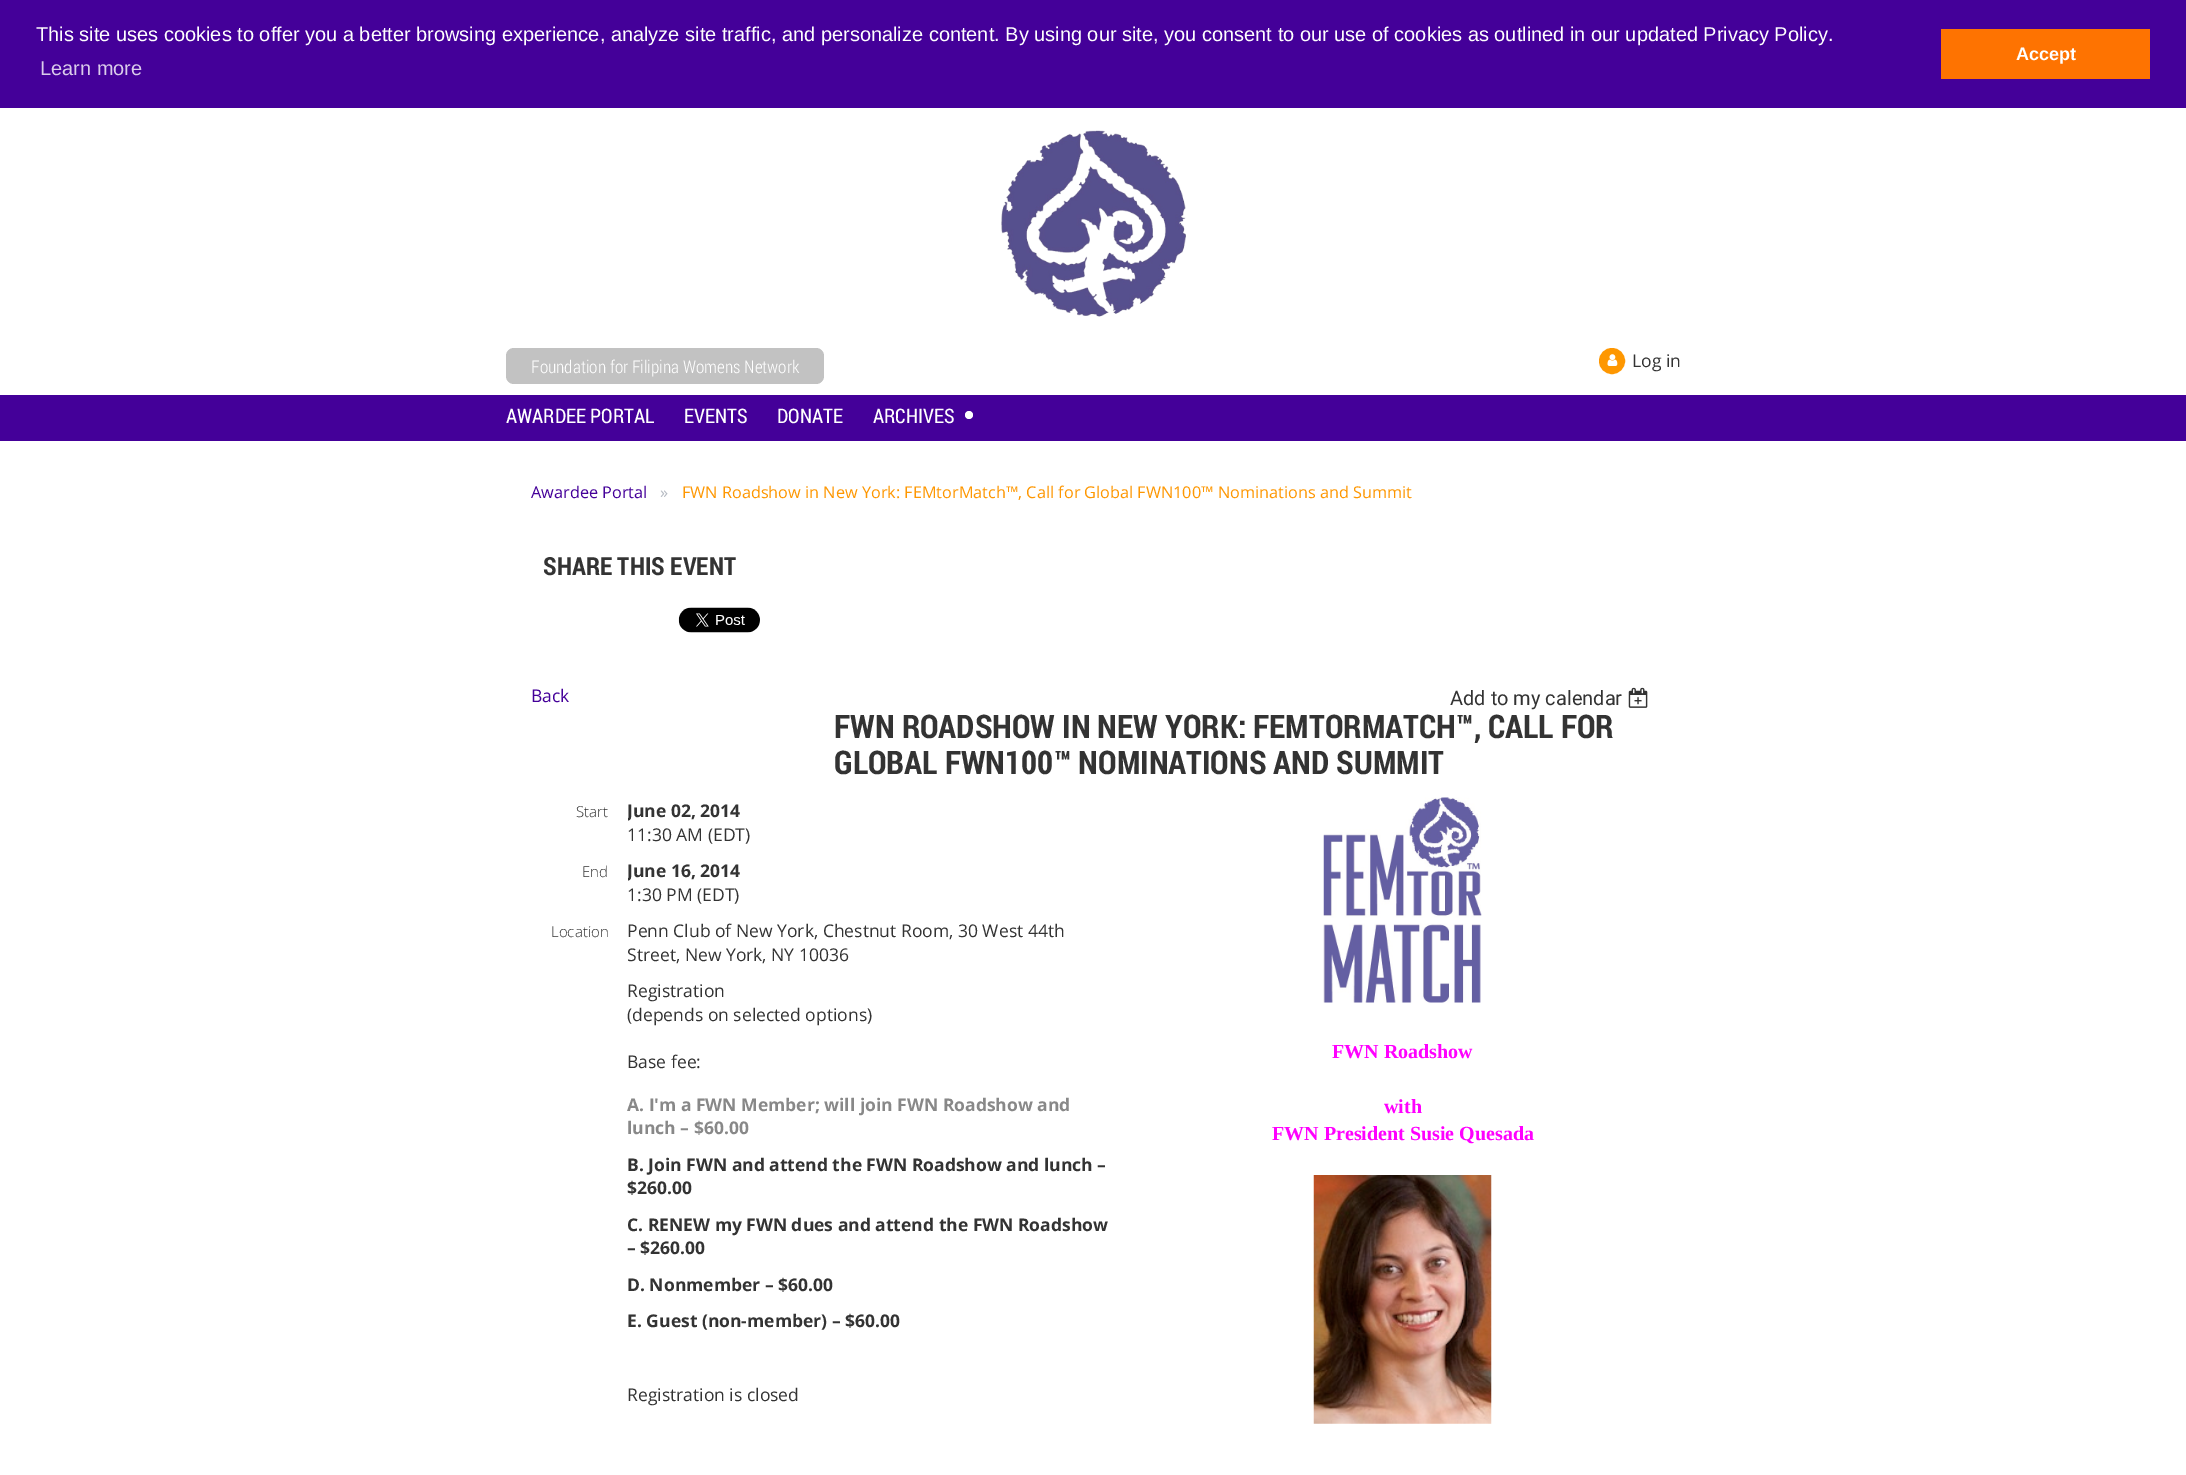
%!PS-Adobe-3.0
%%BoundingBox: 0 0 2186 1475
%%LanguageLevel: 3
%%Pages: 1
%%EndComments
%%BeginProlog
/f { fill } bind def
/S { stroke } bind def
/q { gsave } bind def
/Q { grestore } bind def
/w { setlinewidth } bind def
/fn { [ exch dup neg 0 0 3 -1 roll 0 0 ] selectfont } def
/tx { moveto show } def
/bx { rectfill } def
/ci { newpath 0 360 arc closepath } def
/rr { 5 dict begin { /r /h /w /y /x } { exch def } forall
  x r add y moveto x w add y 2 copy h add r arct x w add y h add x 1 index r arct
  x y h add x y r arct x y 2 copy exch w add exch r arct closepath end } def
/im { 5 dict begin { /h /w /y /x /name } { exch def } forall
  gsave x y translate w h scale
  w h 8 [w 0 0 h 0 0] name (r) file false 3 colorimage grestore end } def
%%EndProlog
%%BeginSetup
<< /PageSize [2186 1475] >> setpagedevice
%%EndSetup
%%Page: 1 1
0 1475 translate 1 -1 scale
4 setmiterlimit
1 setgray
0 0 2186 1475 bx
0.267 0 0.6 setrgbcolor
0 0 2186 108 bx
/LiberationSans-Regular 20 fn
1 setgray
(This site uses cookies to offer you a better browsing experience, analyze site traffic, and personalize content. By using our site, you consent to our use of cookies as outlined in our updated Privacy Policy.) 36 41 tx
0.855 0.8 0.922 setrgbcolor
(Learn more) 40 75 tx
0.996 0.451 0.004 setrgbcolor
1941 29 209 50 bx
/LiberationSans-Bold 18 fn
1 setgray
(Accept) 2016 60 tx
(image0.raw) 1001 130 185 187 im
0.761 setgray
506 348 318 36 8 rr f
/RobotoCondensed-Light 17.5 fn
1 setgray
(Foundation for Filipina Womens Network) 531 373 tx
0.996 0.592 0.004 setrgbcolor
1612 361 11.5 ci q f Q
3 w
S
(image1.raw) 1607 354 11 12 im
/OpenSans-Regular 17.5 fn
0.2 setgray
(Log in) 1632 367 tx
0.267 0 0.6 setrgbcolor
0 395 2186 46 bx
/RobotoCondensed-Regular 20 fn
1 setgray
(AWARDEE PORTAL) 506 423 tx
(EVENTS) 684 423 tx
(DONATE) 777 423 tx
(ARCHIVES) 873 423 tx
969 415 4 ci f
/OpenSans-Regular 16.25 fn
0.267 0 0.6 setrgbcolor
(Awardee Portal) 531 498 tx
0.71 0.729 0.761 setrgbcolor
(») 660 498 tx
0.996 0.592 0.004 setrgbcolor
(FWN Roadshow in New York: FEMtorMatch™, Call for Global FWN100™ Nominations and Summit) 682 498 tx
/RobotoCondensed-Bold 25 fn
0.2 setgray
(SHARE THIS EVENT) 543 575 tx
(image2.raw) 678 607 82 26 im
/OpenSans-Regular 17.5 fn
0.267 0 0.6 setrgbcolor
(Back) 531 702 tx
/Roboto-Regular 20 fn
0.2 setgray
(Add to my calendar) 1450 705 tx
(image3.raw) 1628 687 20 21 im
/RobotoCondensed-Bold 32.5 fn
(FWN ROADSHOW IN NEW YORK: FEMTORMATCH™, CALL FOR) 834 738 tx
(GLOBAL FWN100™ NOMINATIONS AND SUMMIT) 834 774 tx
/OpenSans-Light 15 fn
(Start) 576 817 tx
q
628 798 112 23 rectclip
/OpenSans-Bold 17.5 fn
(June 02, 2014) 627 817 tx
Q
/OpenSans-Regular 17.5 fn
(11:30 AM \(EDT\)) 627 841 tx
/OpenSans-Light 15 fn
(End) 582 877 tx
q
628 858 112 23 rectclip
/OpenSans-Bold 17.5 fn
(June 16, 2014) 627 877 tx
Q
/OpenSans-Regular 17.5 fn
(1:30 PM \(EDT\)) 627 901 tx
/OpenSans-Light 15 fn
(Location) 551 937 tx
/OpenSans-Regular 17.5 fn
(Penn Club of New York, Chestnut Room, 30 West 44th) 627 937 tx
(Street, New York, NY 10036) 627 961 tx
(Registration) 627 997 tx
(\(depends on selected options\)) 627 1021 tx
(Base fee:) 627 1068 tx
/OpenSans-Bold 17.5 fn
0.533 setgray
(A. I'm a FWN Member; will join FWN Roadshow and) 627 1111 tx
(lunch – $60.00) 627 1134 tx
0.2 setgray
(B. Join FWN and attend the FWN Roadshow and lunch –) 627 1171 tx
($260.00) 627 1194 tx
(C. RENEW my FWN dues and attend the FWN Roadshow) 627 1231 tx
(– $260.00) 627 1254 tx
(D. Nonmember – $60.00) 627 1291 tx
(E. Guest \(non-member\) – $60.00) 627 1327 tx
/OpenSans-Regular 17.5 fn
(Registration is closed) 627 1401 tx
(image4.raw) 1323 797 159 206 im
/LiberationSerif-Bold 20 fn
1 0 1 setrgbcolor
(FWN Roadshow) 1332 1058 tx
(with) 1384 1113 tx
(FWN President Susie Quesada) 1272 1140 tx
(image5.raw) 1313 1175 179 249 im
showpage
%%EOF
